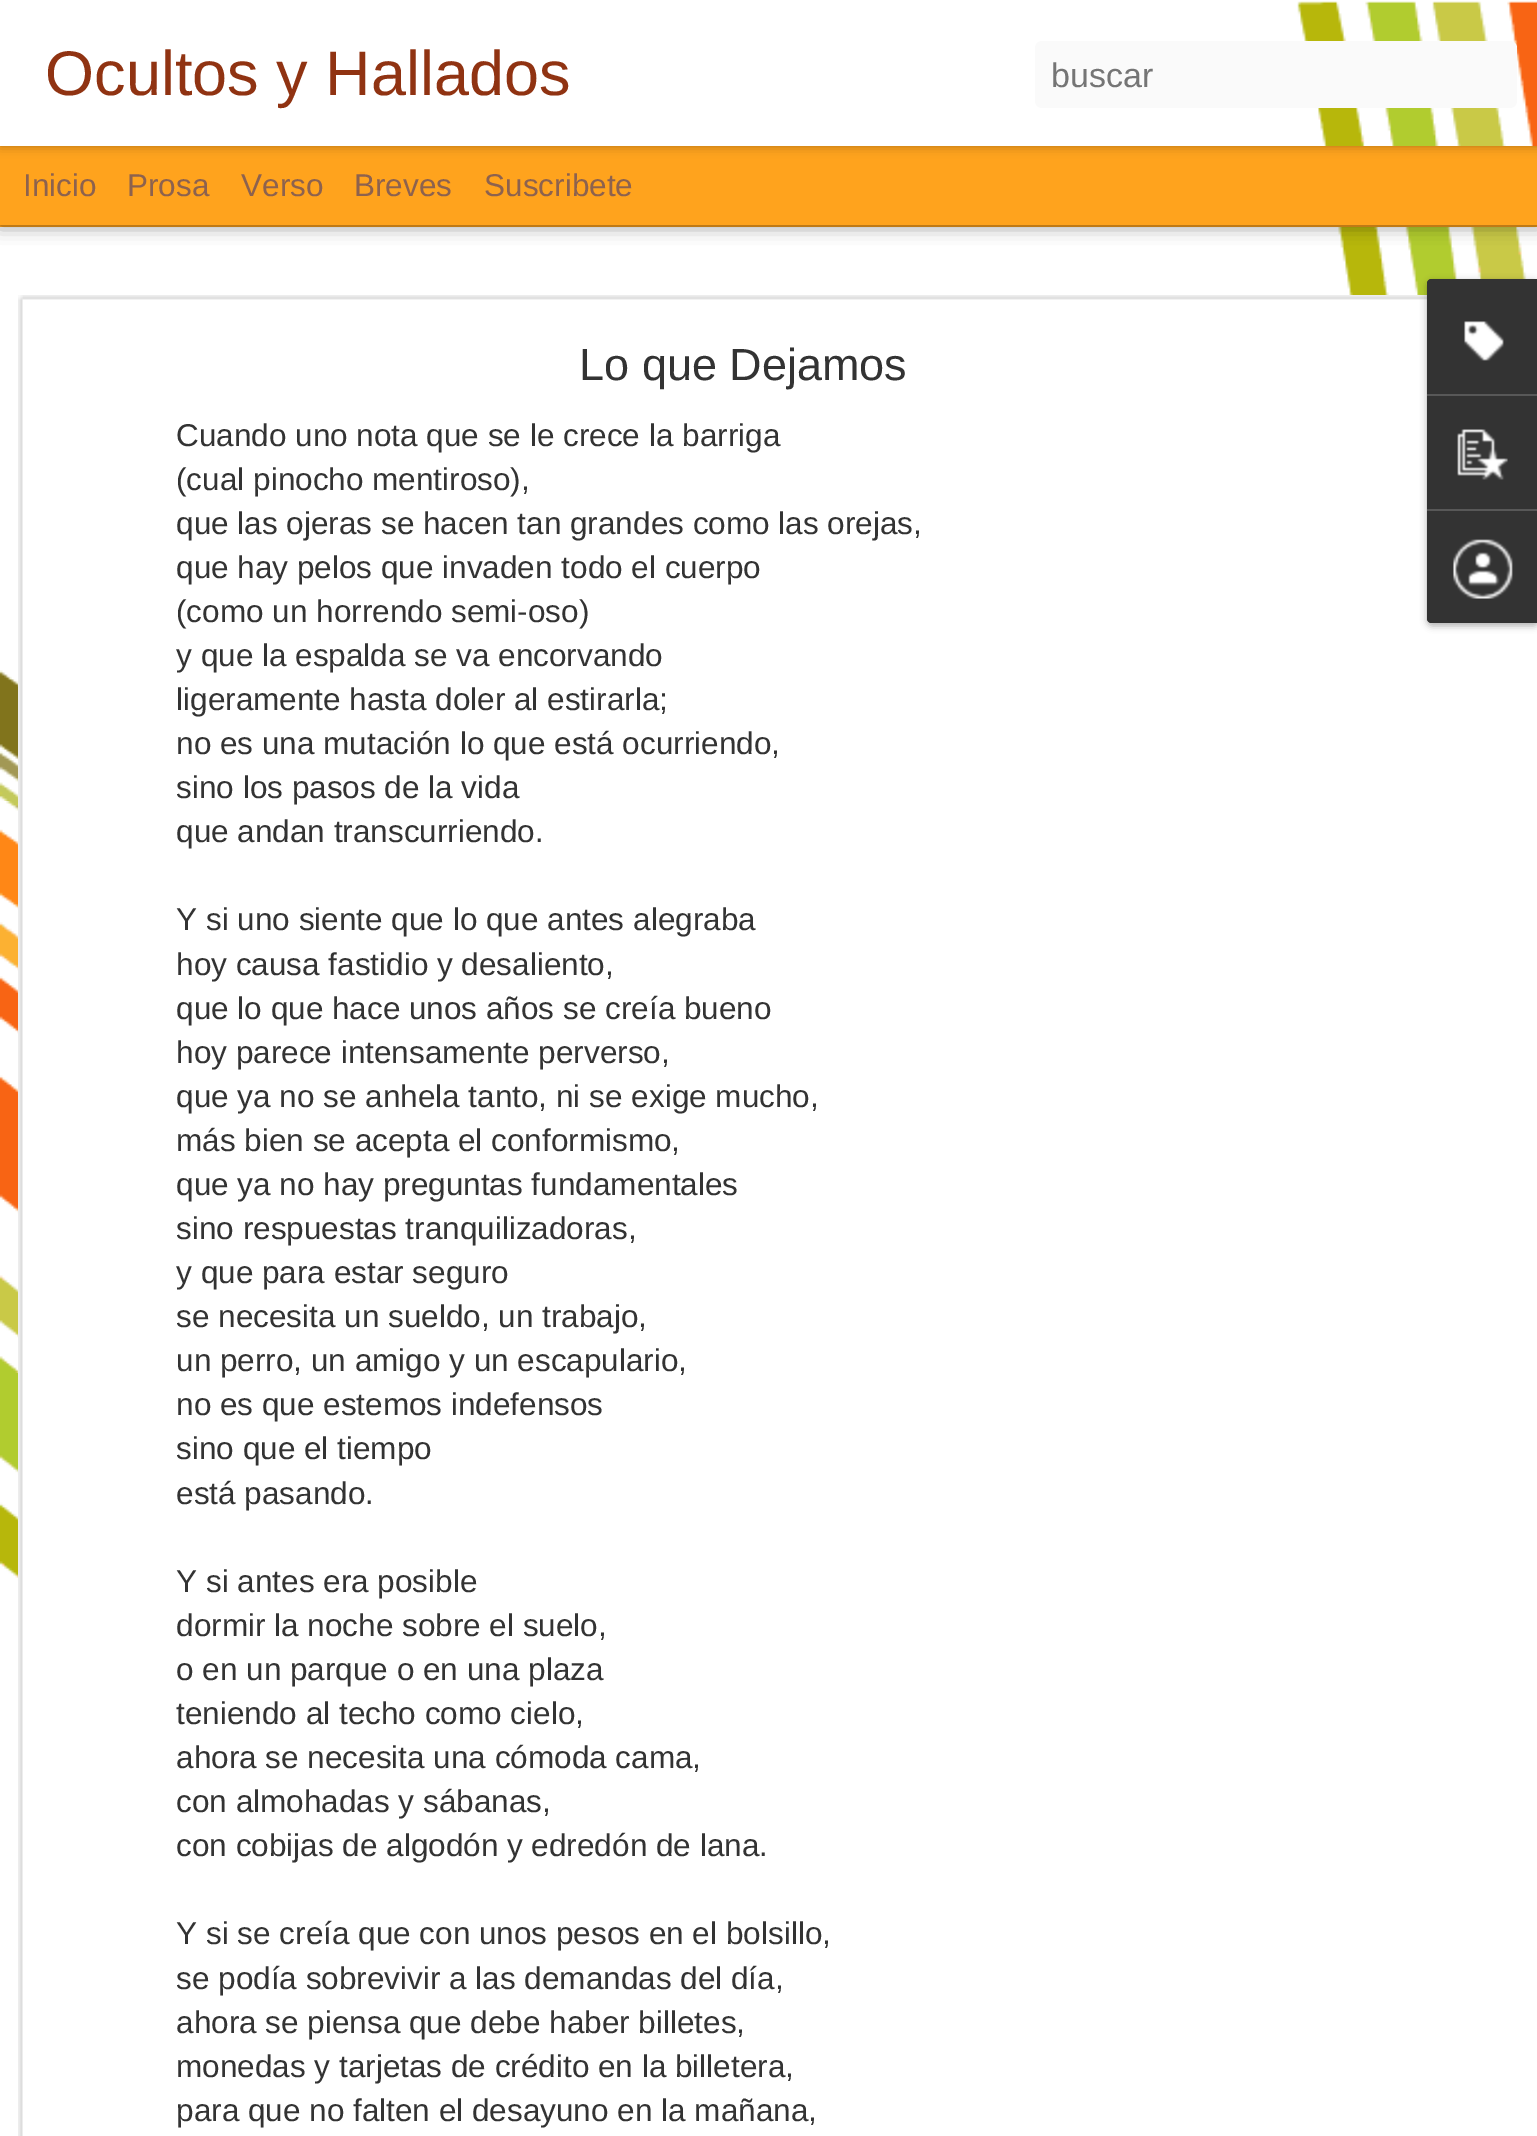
%!PS-Adobe-3.0
%%BoundingBox: 0 0 1537 2136
%%LanguageLevel: 3
%%Pages: 1
%%EndComments
%%BeginProlog
/m { moveto } bind def
/l { lineto } bind def
/c { curveto } bind def
/h { closepath } bind def
/f { fill } bind def
/fn { [ exch dup neg 0 0 3 -1 roll 0 0 ] selectfont } def
/tx { moveto show } def
/bx { rectfill } def
/al { dup .setfillconstantalpha .setstrokeconstantalpha } def
/rr { 5 dict begin { /r /h /w /y /x } { exch def } forall
  x r add y moveto x w add y 2 copy h add r arct x w add y h add x 1 index r arct
  x y h add x y r arct x y 2 copy exch w add exch r arct closepath end } def
/sh { 12 dict begin { /a /b /q /h /w /y /x } { exch def } forall gsave /was 0 def
  9 -2 -9 { dup b mul 4 div /e exch def 1 sub .425 mul 2.718 exch exp 1 add a .99 .min exch div /now exch def
    1 1 now sub 1 was sub div sub al /was now def
    w h .min e 2 mul add 0 gt { x e sub y e sub w e 2 mul add h e 2 mul add
      q e add b .6 mul add w h .min 2 div e add .min 0 .max rr fill } if } for grestore end } def
/im { 5 dict begin { /h /w /y /x /name } { exch def } forall
  gsave x y translate w h scale
  w h 8 [w 0 0 h 0 0] name (r) file false 3 colorimage grestore end } def
%%EndProlog
%%BeginSetup
<< /PageSize [1537 2136] /PageUsesTransparency true >> setpagedevice
%%EndSetup
%%Page: 1 1
0 .pushpdf14devicefilter
0 2136 translate 1 -1 scale
4 setmiterlimit
1 0.639 0.114 setrgbcolor
0 0 1537 2136 bx
(image1.raw) 0 227 1537 1909 im
0 setgray
0 146 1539 79 0 9 0.5 sh
1 0.639 0.114 setrgbcolor
0 146 1537 79 bx
0 setgray
0 0 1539 146 0 5.5 0.3 sh
(image0.raw) 0 0 1537 146 im
/LiberationSans-Regular 63 fn
0.565 0.2 0.071 setrgbcolor
(Ocultos y Hallados) 45 95 tx
0.98 setgray
1035 41 482 67 7 rr f
/LiberationSans-Regular 34 fn
0.459 setgray
(buscar) 1051 87 tx
/LiberationSans-Regular 31.5 fn
0.553 0.384 0.306 setrgbcolor
(Inicio) 23 196 tx
(Prosa) 127 196 tx
(Verso) 241 196 tx
(Breves) 354 196 tx
(Suscribete) 484 196 tx
1 setgray
18 295 1519 1841 bx
(image2.raw) 18 295 1409 1841 im
/LiberationSans-Regular 45 fn
0.2 setgray
(Lo que Dejamos) 579 380 tx
/LiberationSans-Regular 31.5 fn
(Cuando uno nota que se le crece la barriga) 176 446 tx
(\(cual pinocho mentiroso\),) 176 490 tx
(que las ojeras se hacen tan grandes como las orejas,) 176 534 tx
(que hay pelos que invaden todo el cuerpo) 176 578 tx
(\(como un horrendo semi-oso\)) 176 622 tx
(y que la espalda se va encorvando) 176 666 tx
(ligeramente hasta doler al estirarla;) 176 710 tx
(no es una mutación lo que está ocurriendo,) 176 754 tx
(sino los pasos de la vida) 176 798 tx
(que andan transcurriendo.) 176 842 tx
(Y si uno siente que lo que antes alegraba) 176 930 tx
(hoy causa fastidio y desaliento,) 176 975 tx
(que lo que hace unos años se creía bueno) 176 1019 tx
(hoy parece intensamente perverso,) 176 1063 tx
(que ya no se anhela tanto, ni se exige mucho,) 176 1107 tx
(más bien se acepta el conformismo,) 176 1151 tx
(que ya no hay preguntas fundamentales) 176 1195 tx
(sino respuestas tranquilizadoras,) 176 1239 tx
(y que para estar seguro) 176 1283 tx
(se necesita un sueldo, un trabajo,) 176 1327 tx
(un perro, un amigo y un escapulario,) 176 1371 tx
(no es que estemos indefensos) 176 1415 tx
(sino que el tiempo) 176 1459 tx
(está pasando.) 176 1504 tx
(Y si antes era posible) 176 1592 tx
(dormir la noche sobre el suelo,) 176 1636 tx
(o en un parque o en una plaza) 176 1680 tx
(teniendo al techo como cielo,) 176 1724 tx
(ahora se necesita una cómoda cama,) 176 1768 tx
(con almohadas y sábanas,) 176 1812 tx
(con cobijas de algodón y edredón de lana.) 176 1856 tx
(Y si se creía que con unos pesos en el bolsillo,) 176 1944 tx
(se podía sobrevivir a las demandas del día,) 176 1989 tx
(ahora se piensa que debe haber billetes,) 176 2033 tx
(monedas y tarjetas de crédito en la billetera,) 176 2077 tx
(para que no falten el desayuno en la mañana,) 176 2121 tx
0 setgray
1427 281 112 345 5 3.5 0.3 sh
0.2 setgray
1432 279 m 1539 279 l 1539 623 l 1432 623 l 1429 623 1427 621 1427 618 c 1427 284 l 1427 281 1429 279 1432 279 c h f
1432 279 m 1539 279 l 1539 394 l 1427 394 l 1427 284 l 1427 281 1429 279 1432 279 c h f
(image3.raw) 1464 321 40 40 im
0.345 setgray
1427 394 110 2 bx
(image4.raw) 1457 429 51 51 im
0.2 setgray
1427 509 m 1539 509 l 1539 623 l 1432 623 l 1429 623 1427 621 1427 618 c h f
0.345 setgray
1427 509 110 2 bx
(image5.raw) 1453 539 60 60 im
.poppdf14devicefilter showpage
%%EOF
